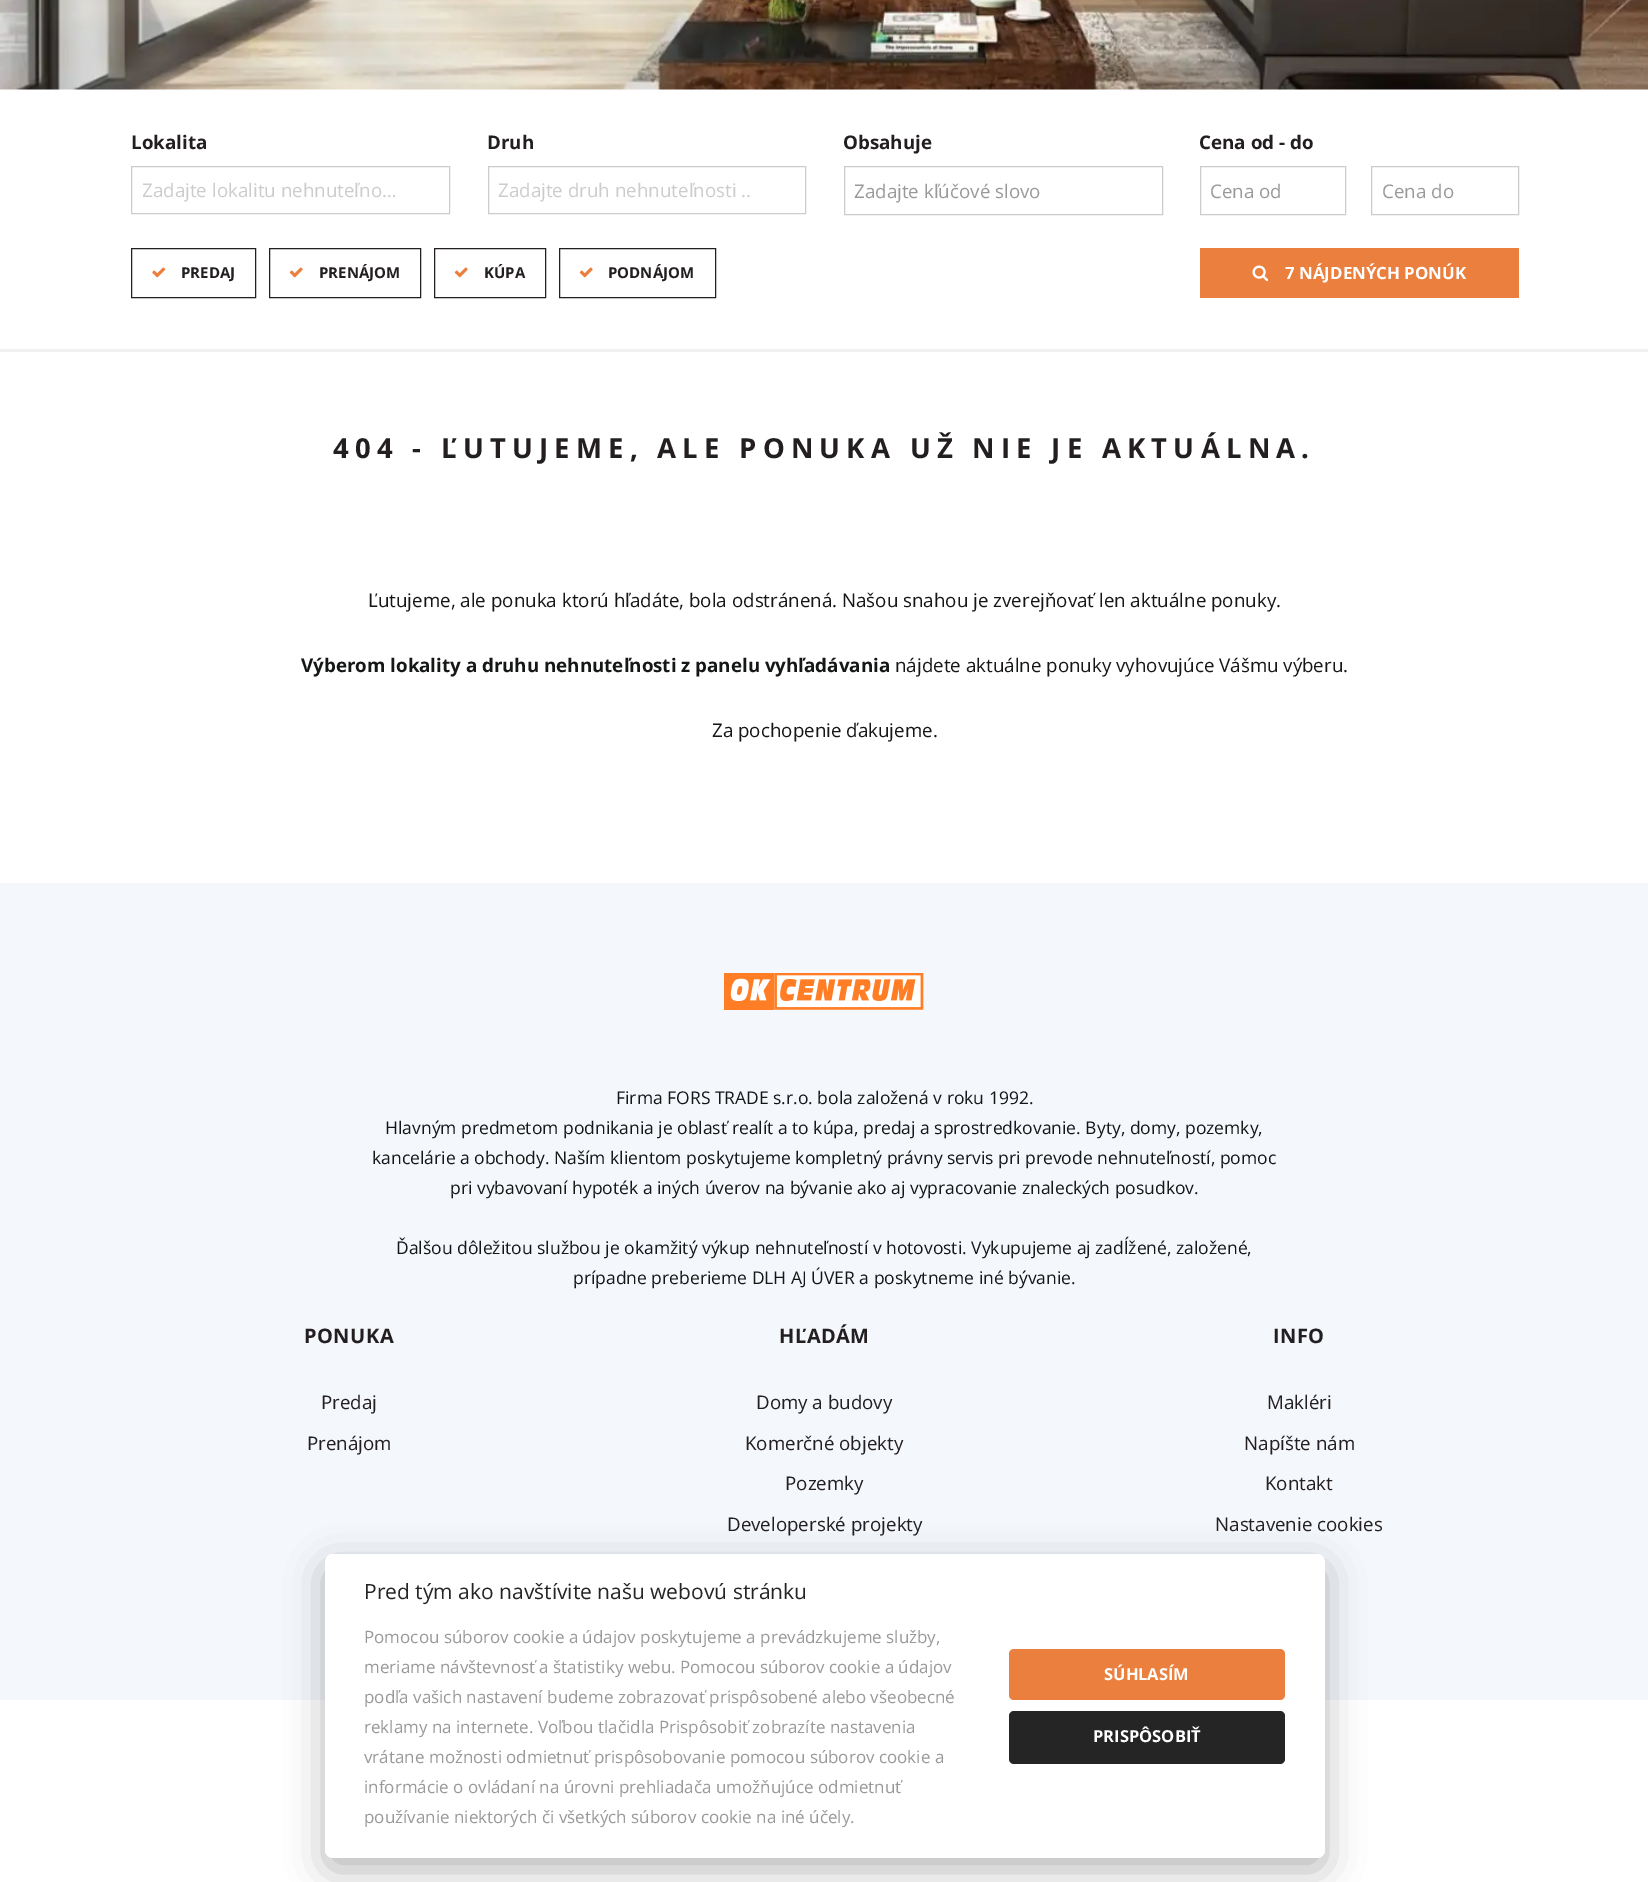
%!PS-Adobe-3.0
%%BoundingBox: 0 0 1648 1882
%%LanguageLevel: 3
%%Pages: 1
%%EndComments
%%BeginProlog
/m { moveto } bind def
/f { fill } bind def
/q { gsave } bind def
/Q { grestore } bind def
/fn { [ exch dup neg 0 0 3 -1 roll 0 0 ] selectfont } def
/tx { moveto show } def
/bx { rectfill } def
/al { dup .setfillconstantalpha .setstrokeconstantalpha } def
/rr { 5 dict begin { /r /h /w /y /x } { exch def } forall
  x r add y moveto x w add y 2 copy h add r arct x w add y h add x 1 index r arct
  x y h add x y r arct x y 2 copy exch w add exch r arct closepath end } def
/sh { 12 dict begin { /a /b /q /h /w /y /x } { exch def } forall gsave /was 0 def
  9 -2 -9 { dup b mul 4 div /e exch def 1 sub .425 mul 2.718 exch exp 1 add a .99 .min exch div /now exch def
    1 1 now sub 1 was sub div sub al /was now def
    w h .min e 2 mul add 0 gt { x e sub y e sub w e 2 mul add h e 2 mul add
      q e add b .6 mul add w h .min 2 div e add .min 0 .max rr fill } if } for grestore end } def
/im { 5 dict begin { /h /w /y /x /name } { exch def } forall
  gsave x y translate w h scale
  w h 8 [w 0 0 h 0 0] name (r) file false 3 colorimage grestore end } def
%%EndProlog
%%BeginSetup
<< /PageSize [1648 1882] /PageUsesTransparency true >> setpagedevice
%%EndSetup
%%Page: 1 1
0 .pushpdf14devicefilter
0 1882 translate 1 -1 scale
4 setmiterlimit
1 setgray
0 0 1648 1882 bx
(image0.raw) 0 0 1648 90 im
0.941 0.941 0.937 setrgbcolor
0 349 1648 3 bx
/OpenSans-Bold 18.75 fn
0.137 0.122 0.125 setrgbcolor
(Lokalita) 131 149 tx
0.8 setgray
131.5 166.5 318 47 rectstroke
q
143 175 296 30 rectclip
/OpenSans-Regular 18.75 fn
(Zadajte lokalitu nehnuteľno…) 142 197 tx
Q
0.137 0.122 0.125 setrgbcolor
(Druh) 487 149 tx
0.8 setgray
488.5 166.5 317 47 rectstroke
/OpenSans-Regular 18.75 fn
(Zadajte druh nehnuteľnosti ..) 498 197 tx
/OpenSans-Bold 18.75 fn
0.137 0.122 0.125 setrgbcolor
(Obsahuje) 843 149 tx
0.8 setgray
844.5 166.5 318 48 rectstroke
/OpenSans-Regular 18.75 fn
0.6 setgray
(Zadajte kľúčové slovo) 854 198 tx
/OpenSans-Bold 18.75 fn
0.137 0.122 0.125 setrgbcolor
(Cena od - do) 1199 149 tx
0.8 setgray
1200.5 166.5 145 48 rectstroke
/OpenSans-Regular 18.75 fn
0.6 setgray
(Cena od) 1210 198 tx
0.8 setgray
1371.5 166.5 147 48 rectstroke
0.6 setgray
(Cena do) 1382 198 tx
0.137 0.122 0.125 setrgbcolor
131.5 248.5 124 49 rectstroke
(image1.raw) 152 267 14 11 im
/OpenSans-Bold 15 fn
(PREDAJ) 181 278 tx
269.5 248.5 151 49 rectstroke
(image2.raw) 289 267 14 11 im
(PRENÁJOM) 319 278 tx
434.5 248.5 111 49 rectstroke
(image2.raw) 454 267 14 11 im
(KÚPA) 484 278 tx
559.5 248.5 156 49 rectstroke
(image2.raw) 579 267 14 11 im
(PODNÁJOM) 608 278 tx
0.922 0.498 0.243 setrgbcolor
1200 248 319 50 bx
(image3.raw) 1252 265 17 17 im
/OpenSans-Bold 16.9 fn
1 setgray
(7 NÁJDENÝCH PONÚK) 1285 279 tx
0.957 0.969 0.984 setrgbcolor
0 883 1648 817 bx
/OpenSans-Bold 27.5 fn
0.137 0.122 0.125 setrgbcolor
333 458 m 6.25 0 (404 - ĽUTUJEME, ALE PONUKA UŽ NIE JE AKTUÁLNA.) ashow
/OpenSans-Regular 18.75 fn
0.082 0.086 0.086 setrgbcolor
(Ľutujeme, ale ponuka ktorú hľadáte, bola odstránená. Našou snahou je zverejňovať len aktuálne ponuky.) 368 607 tx
/OpenSans-Bold 18.75 fn
(Výberom lokality a druhu nehnuteľnosti z panelu vyhľadávania) 301 672 tx
/OpenSans-Regular 18.75 fn
(nájdete aktuálne ponuky vyhovujúce Vášmu výberu.) 895 672 tx
(Za pochopenie ďakujeme.) 712 737 tx
(image4.raw) 724 973 200 37 im
/OpenSans-Regular 17.5 fn
(Firma FORS TRADE s.r.o. bola založená v roku 1992.) 616 1104 tx
(Hlavným predmetom podnikania je oblasť realít a to kúpa, predaj a sprostredkovanie. Byty, domy, pozemky,) 385 1134 tx
(kancelárie a obchody. Naším klientom poskytujeme kompletný právny servis pri prevode nehnuteľností, pomoc) 372 1164 tx
(pri vybavovaní hypoték a iných úverov na bývanie ako aj vypracovanie znaleckých posudkov.) 450 1194 tx
(Ďalšou dôležitou službou je okamžitý výkup nehnuteľností v hotovosti. Vykupujeme aj zadĺžené, založené,) 396 1254 tx
(prípadne preberieme DLH AJ ÚVER a poskytneme iné bývanie.) 573 1284 tx
/OpenSans-Bold 20 fn
0.137 0.122 0.125 setrgbcolor
304 1343 m 0.5 0 (PONUKA) ashow
/OpenSans-Regular 18.75 fn
(Predaj) 321 1409 tx
(Prenájom) 307 1450 tx
/OpenSans-Bold 20 fn
779 1343 m 0.5 0 (HĽADÁM) ashow
/OpenSans-Regular 18.75 fn
(Domy a budovy) 756 1409 tx
(Komerčné objekty) 745 1450 tx
(Pozemky) 785 1490 tx
(Developerské projekty) 727 1531 tx
/OpenSans-Bold 20 fn
1273 1343 m 0.5 0 (INFO) ashow
/OpenSans-Regular 18.75 fn
(Makléri) 1267 1409 tx
(Napíšte nám) 1244 1450 tx
(Kontakt) 1265 1490 tx
(Nastavenie cookies) 1215 1531 tx
0.008 0.008 0.012 setrgbcolor
325 1566 1000 304 8 19 0.28 sh
1 setgray
325 1554 1000 304 8 rr f
/OpenSans-Regular 21 fn
0.145 setgray
(Pred tým ako navštívite našu webovú stránku) 364 1599 tx
/OpenSans-Regular 17 fn
0.6 setgray
(Pomocou súborov cookie a údajov poskytujeme a prevádzkujeme služby,) 364 1643 tx
(meriame návštevnosť a štatistiky webu. Pomocou súborov cookie a údajov) 364 1673 tx
(podľa vašich nastavení budeme zobrazovať prispôsobené alebo všeobecné) 364 1703 tx
(reklamy na internete. Voľbou tlačidla Prispôsobiť zobrazíte nastavenia) 364 1733 tx
(vrátane možnosti odmietnuť prispôsobovanie pomocou súborov cookie a) 364 1763 tx
(informácie o ovládaní na úrovni prehliadača umožňujúce odmietnuť) 364 1793 tx
(používanie niektorých či všetkých súborov cookie na iné účely.) 364 1823 tx
0.922 0.498 0.243 setrgbcolor
1009 1649 276 51 5 rr f
/OpenSans-Bold 16.5 fn
1 setgray
(SÚHLASÍM) 1104 1680 tx
0.145 setgray
1009 1711 276 53 5 rr f
1 setgray
(PRISPÔSOBIŤ) 1093 1742 tx
.poppdf14devicefilter showpage
%%EOF
